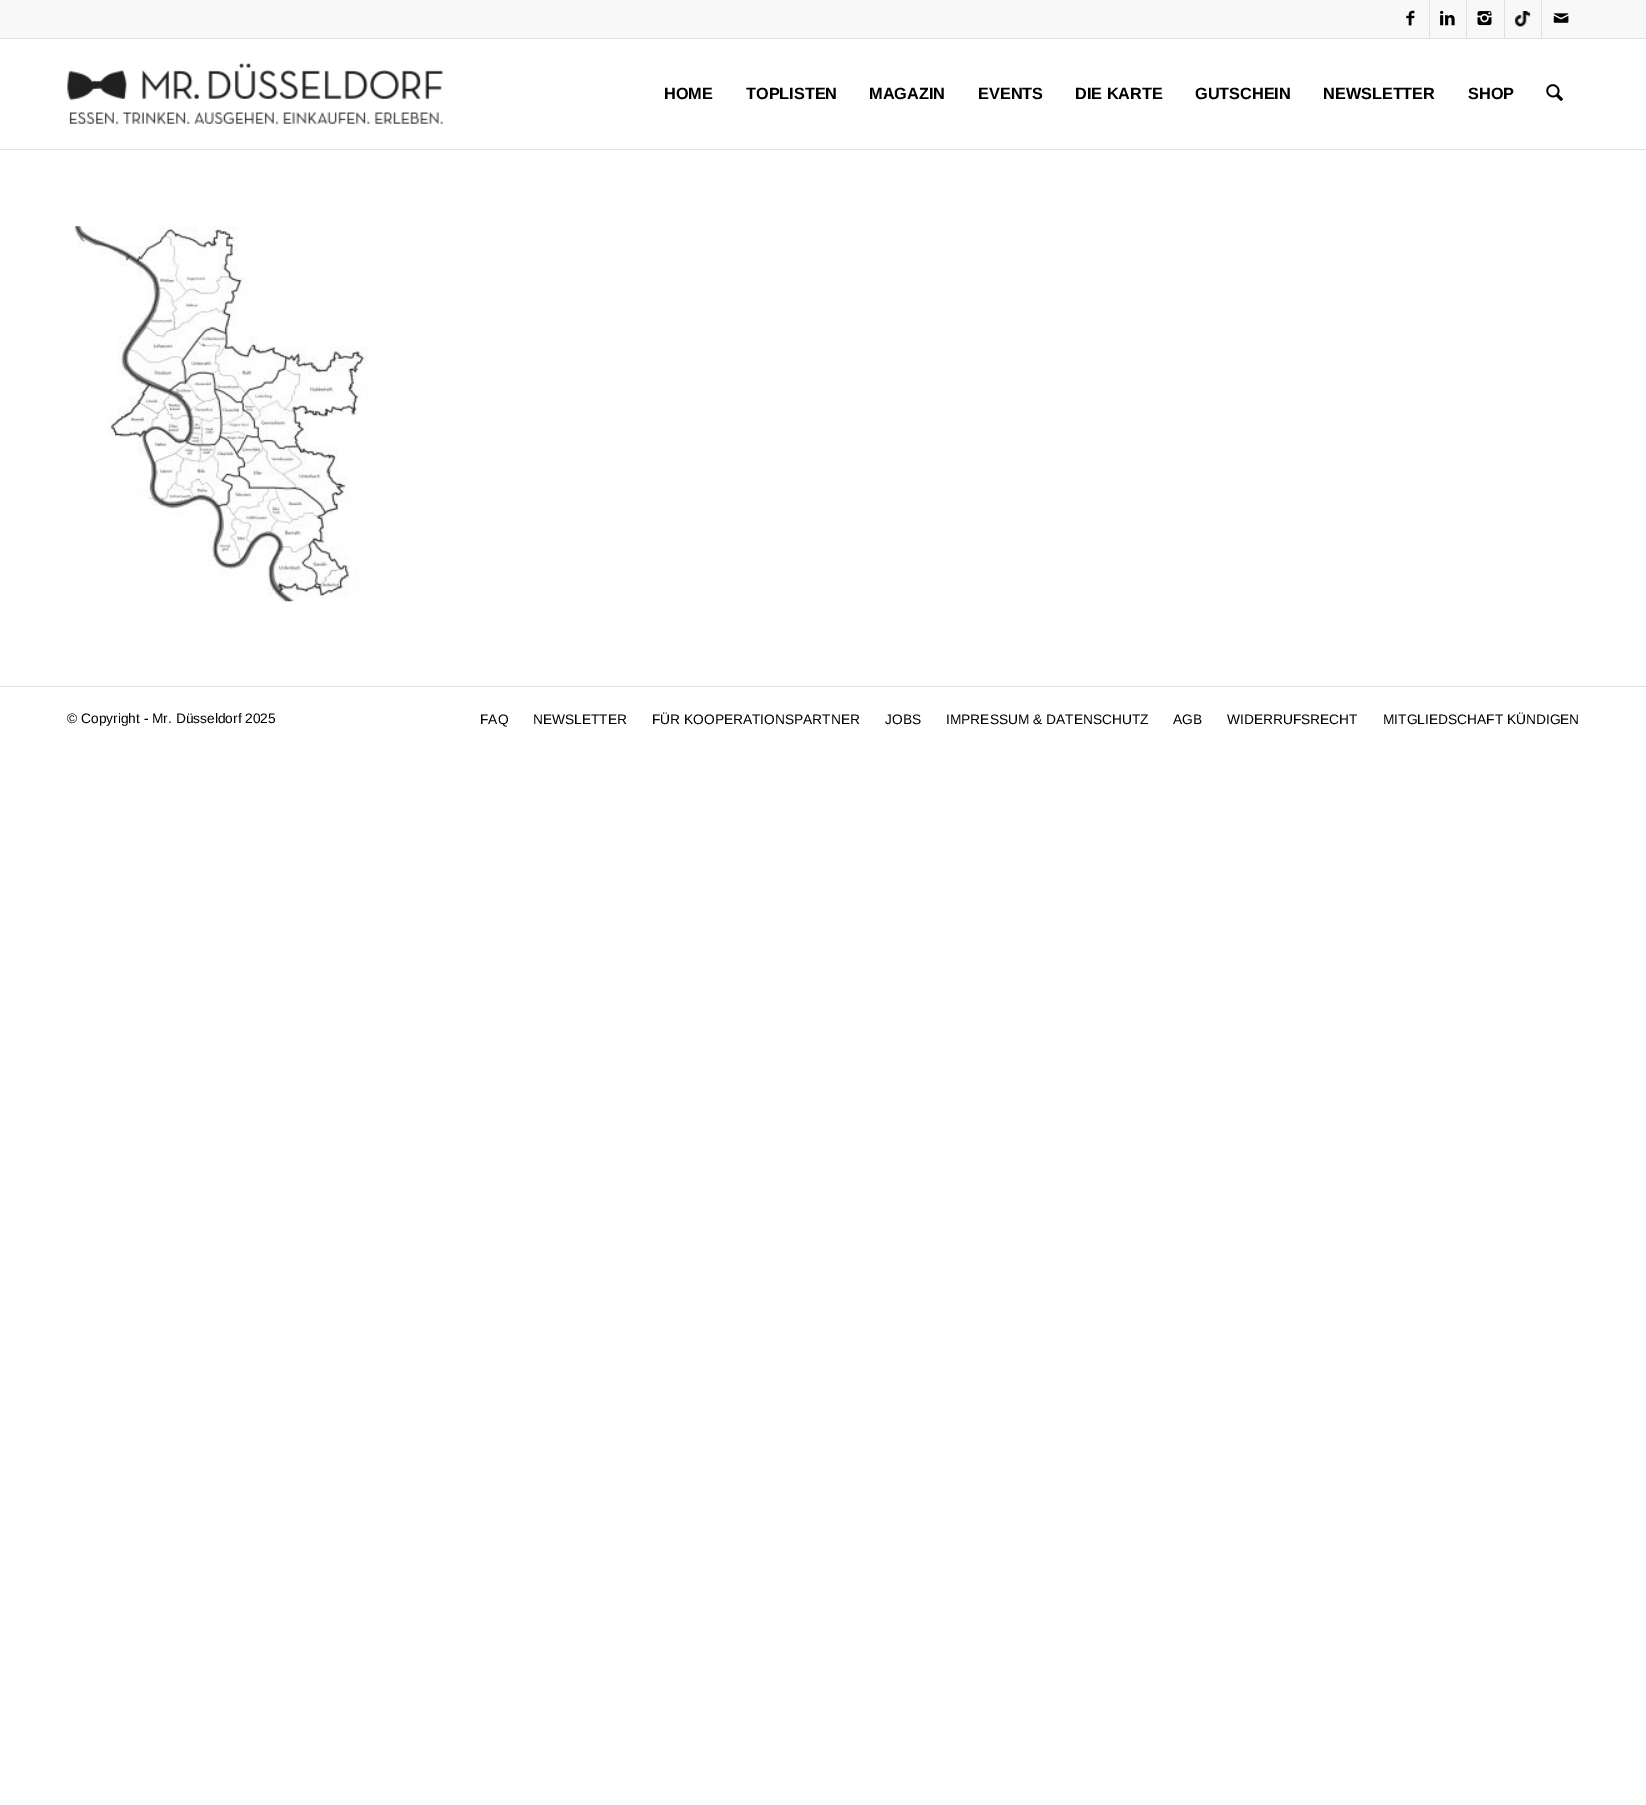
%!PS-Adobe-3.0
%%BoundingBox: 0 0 1646 1805
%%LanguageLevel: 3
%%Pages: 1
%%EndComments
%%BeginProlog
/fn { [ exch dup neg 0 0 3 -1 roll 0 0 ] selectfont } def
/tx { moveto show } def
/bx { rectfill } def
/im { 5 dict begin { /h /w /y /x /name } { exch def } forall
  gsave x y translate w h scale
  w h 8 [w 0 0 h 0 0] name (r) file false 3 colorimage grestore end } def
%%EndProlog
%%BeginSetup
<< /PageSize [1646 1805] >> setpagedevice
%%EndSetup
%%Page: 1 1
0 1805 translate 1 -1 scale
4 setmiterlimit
1 setgray
0 0 1646 1805 bx
0.973 setgray
0 0 1646 38 bx
0.882 setgray
0 38 1646 1 bx
1429 0 1 38 bx
(image0.raw) 1406 10 9 16 im
1466 0 1 38 bx
(image1.raw) 1440 10 15 16 im
1504 0 1 38 bx
(image2.raw) 1477 11 15 15 im
1541 0 1 38 bx
(image3.raw) 1514 11 17 16 im
(image4.raw) 1553 13 16 10 im
0 149 1646 1 bx
(image5.raw) 67 63 376 61 im
/LiberationSans-Bold 16.25 fn
0 setgray
(HOME) 664 99 tx
(TOPLISTEN) 746 99 tx
(MAGAZIN) 869 99 tx
(EVENTS) 978 99 tx
(DIE KARTE) 1075 99 tx
(GUTSCHEIN) 1195 99 tx
(NEWSLETTER) 1323 99 tx
(SHOP) 1468 99 tx
(image6.raw) 1546 84 17 17 im
(image7.raw) 74 226 294 376 im
0.882 setgray
0 686 1646 1 bx
/LiberationSans-Regular 13.75 fn
0 setgray
(© Copyright - Mr. Düsseldorf 2025) 67 723 tx
(FAQ) 480 724 tx
(NEWSLETTER) 533 724 tx
(FÜR KOOPERATIONSPARTNER) 652 724 tx
(JOBS) 885 724 tx
(IMPRESSUM & DATENSCHUTZ) 946 724 tx
(AGB) 1173 724 tx
(WIDERRUFSRECHT) 1227 724 tx
(MITGLIEDSCHAFT KÜNDIGEN) 1383 724 tx
showpage
%%EOF
